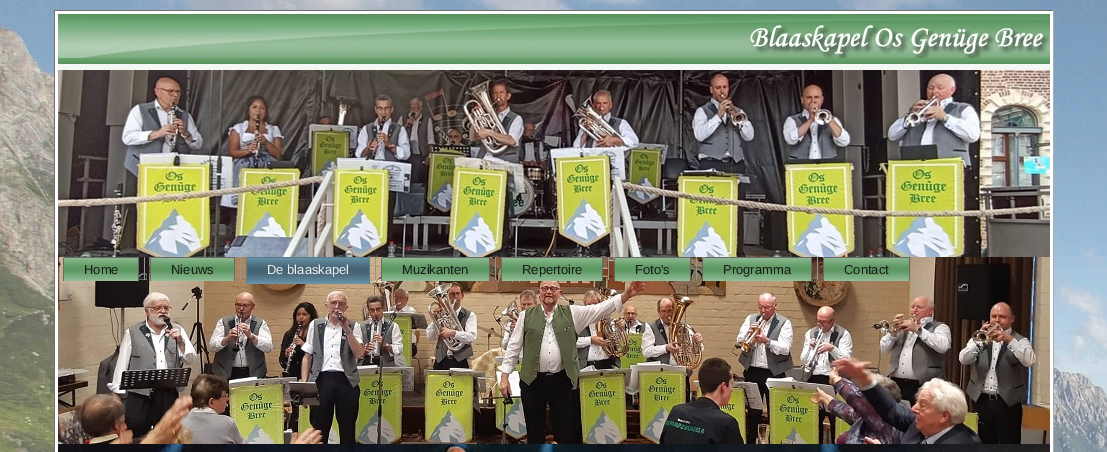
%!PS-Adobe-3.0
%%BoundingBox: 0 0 1107 452
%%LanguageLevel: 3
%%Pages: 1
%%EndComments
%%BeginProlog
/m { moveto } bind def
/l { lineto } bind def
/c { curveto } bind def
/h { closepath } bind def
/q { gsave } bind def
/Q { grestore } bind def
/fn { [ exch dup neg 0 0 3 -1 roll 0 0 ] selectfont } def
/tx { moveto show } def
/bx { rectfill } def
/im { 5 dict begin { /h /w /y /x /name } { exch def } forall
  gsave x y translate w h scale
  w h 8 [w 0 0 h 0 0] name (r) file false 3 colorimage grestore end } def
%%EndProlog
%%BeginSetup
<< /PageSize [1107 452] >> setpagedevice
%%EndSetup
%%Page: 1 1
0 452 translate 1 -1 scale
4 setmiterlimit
1 setgray
0 0 1107 452 bx
(image0.raw) 0 0 1107 452 im
55 11 998 441 bx
0.447 setgray
54 10 1000 1 bx
0.671 setgray
1053 10 1 442 bx
0.447 setgray
54 10 1 442 bx
(image1.raw) 58 14 992 50 im
q 58 64 m 1050 64 l 1050 70 l 58 70 l h clip newpath
<< /ShadingType 2 /ColorSpace /DeviceRGB /Coords [554 64 554 284] /Extend [true true] /Function << /FunctionType 3 /Domain [0 1] /Functions [<< /FunctionType 2 /Domain [0 1] /C0 [0.961 0.976 0.965] /C1 [0.816 0.886 0.824] /N 1 >> << /FunctionType 2 /Domain [0 1] /C0 [0.816 0.886 0.824] /C1 [0.725 0.737 0.725] /N 1 >>] /Bounds [0.49] /Encode [0 1 0 1] >> >> shfill Q
(image2.raw) 58 70 992 187 im
(image3.raw) 58 257 992 187 im
(image4.raw) 58 444 992 8 im
q 65 257 m 139 257 l 139 281 l 63 281 l 63 259 l 63 258 64 257 65 257 c h clip newpath
<< /ShadingType 2 /ColorSpace /DeviceRGB /Coords [101 257 101 281] /Extend [true true] /Function << /FunctionType 3 /Domain [0 1] /Functions [<< /FunctionType 2 /Domain [0 1] /C0 [0.58 0.737 0.596] /C1 [0.384 0.616 0.404] /N 1 >> << /FunctionType 2 /Domain [0 1] /C0 [0.384 0.616 0.404] /C1 [0.376 0.604 0.396] /N 1 >> << /FunctionType 2 /Domain [0 1] /C0 [0.376 0.604 0.396] /C1 [0.369 0.592 0.388] /N 1 >> << /FunctionType 2 /Domain [0 1] /C0 [0.369 0.592 0.388] /C1 [0.376 0.604 0.396] /N 1 >> << /FunctionType 2 /Domain [0 1] /C0 [0.376 0.604 0.396] /C1 [0.384 0.616 0.404] /N 1 >> << /FunctionType 2 /Domain [0 1] /C0 [0.384 0.616 0.404] /C1 [0.58 0.737 0.596] /N 1 >>] /Bounds [0.38 0.4 0.5 0.6 0.62] /Encode [0 1 0 1 0 1 0 1 0 1 0 1] >> >> shfill Q
0.412 setgray
64 257 75 1 bx
138 257 1 24 bx
63 258 1 23 bx
/LiberationSans-Regular 13 fn
0.102 setgray
(Home) 84 274 tx
0.58 setgray
144 257 1 23 bx
q 152 257 m 235 257 l 235 281 l 150 281 l 150 259 l 150 258 151 257 152 257 c h clip newpath
<< /ShadingType 2 /ColorSpace /DeviceRGB /Coords [193 257 193 281] /Extend [true true] /Function << /FunctionType 3 /Domain [0 1] /Functions [<< /FunctionType 2 /Domain [0 1] /C0 [0.58 0.737 0.596] /C1 [0.384 0.616 0.404] /N 1 >> << /FunctionType 2 /Domain [0 1] /C0 [0.384 0.616 0.404] /C1 [0.376 0.604 0.396] /N 1 >> << /FunctionType 2 /Domain [0 1] /C0 [0.376 0.604 0.396] /C1 [0.369 0.592 0.388] /N 1 >> << /FunctionType 2 /Domain [0 1] /C0 [0.369 0.592 0.388] /C1 [0.376 0.604 0.396] /N 1 >> << /FunctionType 2 /Domain [0 1] /C0 [0.376 0.604 0.396] /C1 [0.384 0.616 0.404] /N 1 >> << /FunctionType 2 /Domain [0 1] /C0 [0.384 0.616 0.404] /C1 [0.58 0.737 0.596] /N 1 >>] /Bounds [0.38 0.4 0.5 0.6 0.62] /Encode [0 1 0 1 0 1 0 1 0 1 0 1] >> >> shfill Q
0.412 setgray
151 257 84 1 bx
234 257 1 24 bx
150 258 1 23 bx
0.102 setgray
(Nieuws) 171 274 tx
0.58 setgray
240 257 1 23 bx
q 248 257 m 370 257 l 370 284 l 246 284 l 246 259 l 246 258 247 257 248 257 c h clip newpath
<< /ShadingType 2 /ColorSpace /DeviceRGB /Coords [308 257 308 284] /Extend [true true] /Function << /FunctionType 3 /Domain [0 1] /Functions [<< /FunctionType 2 /Domain [0 1] /C0 [0.431 0.576 0.651] /C1 [0.38 0.541 0.62] /N 1 >> << /FunctionType 2 /Domain [0 1] /C0 [0.38 0.541 0.62] /C1 [0.282 0.4 0.459] /N 1 >> << /FunctionType 2 /Domain [0 1] /C0 [0.282 0.4 0.459] /C1 [0.275 0.388 0.447] /N 1 >> << /FunctionType 2 /Domain [0 1] /C0 [0.275 0.388 0.447] /C1 [0.282 0.4 0.459] /N 1 >> << /FunctionType 2 /Domain [0 1] /C0 [0.282 0.4 0.459] /C1 [0.38 0.541 0.62] /N 1 >> << /FunctionType 2 /Domain [0 1] /C0 [0.38 0.541 0.62] /C1 [0.431 0.576 0.651] /N 1 >>] /Bounds [0.09 0.4 0.5 0.6 0.91] /Encode [0 1 0 1 0 1 0 1 0 1 0 1] >> >> shfill Q
0.341 0.486 0.557 setrgbcolor
247 257 123 1 bx
369 257 1 27 bx
246 258 1 26 bx
0.929 setgray
(De blaaskapel) 267 274 tx
0.58 setgray
375 257 1 23 bx
q 383 257 m 490 257 l 490 281 l 381 281 l 381 259 l 381 258 382 257 383 257 c h clip newpath
<< /ShadingType 2 /ColorSpace /DeviceRGB /Coords [436 257 436 281] /Extend [true true] /Function << /FunctionType 3 /Domain [0 1] /Functions [<< /FunctionType 2 /Domain [0 1] /C0 [0.58 0.737 0.596] /C1 [0.384 0.616 0.404] /N 1 >> << /FunctionType 2 /Domain [0 1] /C0 [0.384 0.616 0.404] /C1 [0.376 0.604 0.396] /N 1 >> << /FunctionType 2 /Domain [0 1] /C0 [0.376 0.604 0.396] /C1 [0.369 0.592 0.388] /N 1 >> << /FunctionType 2 /Domain [0 1] /C0 [0.369 0.592 0.388] /C1 [0.376 0.604 0.396] /N 1 >> << /FunctionType 2 /Domain [0 1] /C0 [0.376 0.604 0.396] /C1 [0.384 0.616 0.404] /N 1 >> << /FunctionType 2 /Domain [0 1] /C0 [0.384 0.616 0.404] /C1 [0.58 0.737 0.596] /N 1 >>] /Bounds [0.38 0.4 0.5 0.6 0.62] /Encode [0 1 0 1 0 1 0 1 0 1 0 1] >> >> shfill Q
0.412 setgray
382 257 108 1 bx
489 257 1 24 bx
381 258 1 23 bx
0.102 setgray
(Muzikanten) 402 274 tx
0.58 setgray
495 257 1 23 bx
q 503 257 m 603 257 l 603 281 l 501 281 l 501 259 l 501 258 502 257 503 257 c h clip newpath
<< /ShadingType 2 /ColorSpace /DeviceRGB /Coords [552 257 552 281] /Extend [true true] /Function << /FunctionType 3 /Domain [0 1] /Functions [<< /FunctionType 2 /Domain [0 1] /C0 [0.58 0.737 0.596] /C1 [0.384 0.616 0.404] /N 1 >> << /FunctionType 2 /Domain [0 1] /C0 [0.384 0.616 0.404] /C1 [0.376 0.604 0.396] /N 1 >> << /FunctionType 2 /Domain [0 1] /C0 [0.376 0.604 0.396] /C1 [0.369 0.592 0.388] /N 1 >> << /FunctionType 2 /Domain [0 1] /C0 [0.369 0.592 0.388] /C1 [0.376 0.604 0.396] /N 1 >> << /FunctionType 2 /Domain [0 1] /C0 [0.376 0.604 0.396] /C1 [0.384 0.616 0.404] /N 1 >> << /FunctionType 2 /Domain [0 1] /C0 [0.384 0.616 0.404] /C1 [0.58 0.737 0.596] /N 1 >>] /Bounds [0.38 0.4 0.5 0.6 0.62] /Encode [0 1 0 1 0 1 0 1 0 1 0 1] >> >> shfill Q
0.412 setgray
502 257 101 1 bx
602 257 1 24 bx
501 258 1 23 bx
0.102 setgray
(Repertoire) 522 274 tx
0.58 setgray
608 257 1 23 bx
q 616 257 m 691 257 l 691 281 l 614 281 l 614 259 l 614 258 615 257 616 257 c h clip newpath
<< /ShadingType 2 /ColorSpace /DeviceRGB /Coords [653 257 653 281] /Extend [true true] /Function << /FunctionType 3 /Domain [0 1] /Functions [<< /FunctionType 2 /Domain [0 1] /C0 [0.58 0.737 0.596] /C1 [0.384 0.616 0.404] /N 1 >> << /FunctionType 2 /Domain [0 1] /C0 [0.384 0.616 0.404] /C1 [0.376 0.604 0.396] /N 1 >> << /FunctionType 2 /Domain [0 1] /C0 [0.376 0.604 0.396] /C1 [0.369 0.592 0.388] /N 1 >> << /FunctionType 2 /Domain [0 1] /C0 [0.369 0.592 0.388] /C1 [0.376 0.604 0.396] /N 1 >> << /FunctionType 2 /Domain [0 1] /C0 [0.376 0.604 0.396] /C1 [0.384 0.616 0.404] /N 1 >> << /FunctionType 2 /Domain [0 1] /C0 [0.384 0.616 0.404] /C1 [0.58 0.737 0.596] /N 1 >>] /Bounds [0.38 0.4 0.5 0.6 0.62] /Encode [0 1 0 1 0 1 0 1 0 1 0 1] >> >> shfill Q
0.412 setgray
615 257 76 1 bx
690 257 1 24 bx
614 258 1 23 bx
0.102 setgray
(Foto's) 635 274 tx
0.58 setgray
696 257 1 23 bx
q 704 257 m 812 257 l 812 281 l 702 281 l 702 259 l 702 258 703 257 704 257 c h clip newpath
<< /ShadingType 2 /ColorSpace /DeviceRGB /Coords [757 257 757 281] /Extend [true true] /Function << /FunctionType 3 /Domain [0 1] /Functions [<< /FunctionType 2 /Domain [0 1] /C0 [0.58 0.737 0.596] /C1 [0.384 0.616 0.404] /N 1 >> << /FunctionType 2 /Domain [0 1] /C0 [0.384 0.616 0.404] /C1 [0.376 0.604 0.396] /N 1 >> << /FunctionType 2 /Domain [0 1] /C0 [0.376 0.604 0.396] /C1 [0.369 0.592 0.388] /N 1 >> << /FunctionType 2 /Domain [0 1] /C0 [0.369 0.592 0.388] /C1 [0.376 0.604 0.396] /N 1 >> << /FunctionType 2 /Domain [0 1] /C0 [0.376 0.604 0.396] /C1 [0.384 0.616 0.404] /N 1 >> << /FunctionType 2 /Domain [0 1] /C0 [0.384 0.616 0.404] /C1 [0.58 0.737 0.596] /N 1 >>] /Bounds [0.38 0.4 0.5 0.6 0.62] /Encode [0 1 0 1 0 1 0 1 0 1 0 1] >> >> shfill Q
0.412 setgray
703 257 109 1 bx
811 257 1 24 bx
702 258 1 23 bx
0.102 setgray
(Programma) 723 274 tx
0.58 setgray
817 257 1 23 bx
q 825 257 m 910 257 l 910 281 l 823 281 l 823 259 l 823 258 824 257 825 257 c h clip newpath
<< /ShadingType 2 /ColorSpace /DeviceRGB /Coords [867 257 867 281] /Extend [true true] /Function << /FunctionType 3 /Domain [0 1] /Functions [<< /FunctionType 2 /Domain [0 1] /C0 [0.58 0.737 0.596] /C1 [0.384 0.616 0.404] /N 1 >> << /FunctionType 2 /Domain [0 1] /C0 [0.384 0.616 0.404] /C1 [0.376 0.604 0.396] /N 1 >> << /FunctionType 2 /Domain [0 1] /C0 [0.376 0.604 0.396] /C1 [0.369 0.592 0.388] /N 1 >> << /FunctionType 2 /Domain [0 1] /C0 [0.369 0.592 0.388] /C1 [0.376 0.604 0.396] /N 1 >> << /FunctionType 2 /Domain [0 1] /C0 [0.376 0.604 0.396] /C1 [0.384 0.616 0.404] /N 1 >> << /FunctionType 2 /Domain [0 1] /C0 [0.384 0.616 0.404] /C1 [0.58 0.737 0.596] /N 1 >>] /Bounds [0.38 0.4 0.5 0.6 0.62] /Encode [0 1 0 1 0 1 0 1 0 1 0 1] >> >> shfill Q
0.412 setgray
824 257 86 1 bx
909 257 1 24 bx
823 258 1 23 bx
0.102 setgray
(Contact) 844 274 tx
showpage
%%EOF
